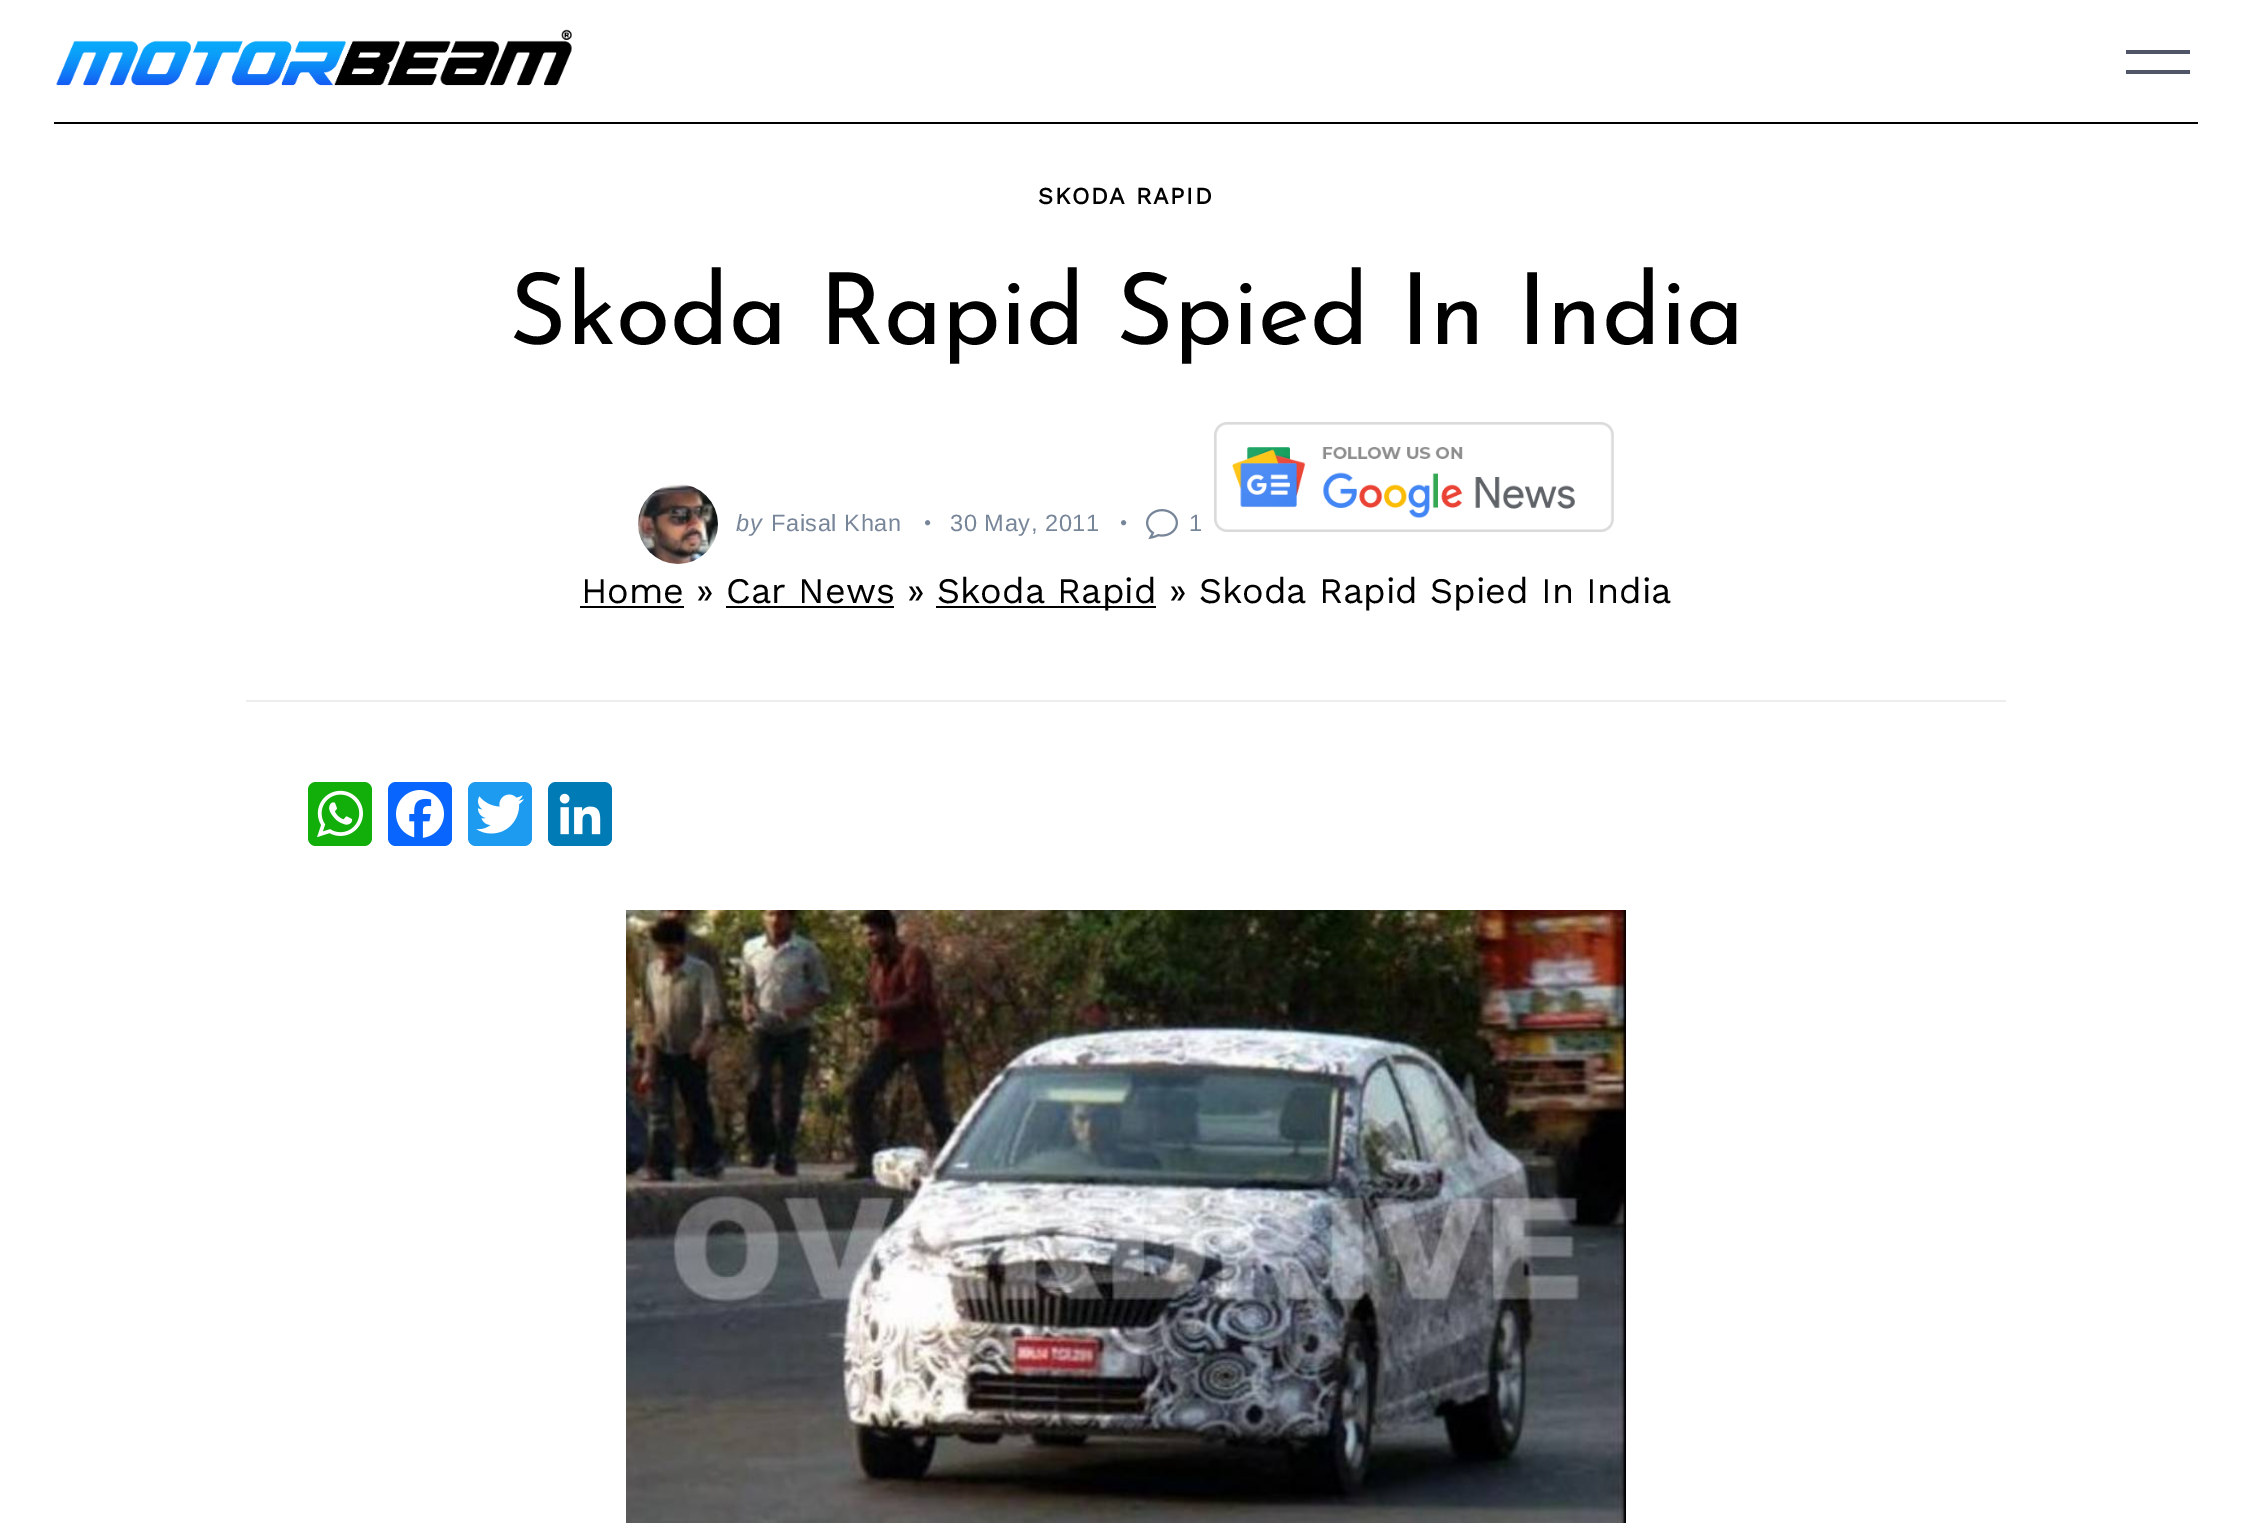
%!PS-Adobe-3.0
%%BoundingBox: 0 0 2251 1523
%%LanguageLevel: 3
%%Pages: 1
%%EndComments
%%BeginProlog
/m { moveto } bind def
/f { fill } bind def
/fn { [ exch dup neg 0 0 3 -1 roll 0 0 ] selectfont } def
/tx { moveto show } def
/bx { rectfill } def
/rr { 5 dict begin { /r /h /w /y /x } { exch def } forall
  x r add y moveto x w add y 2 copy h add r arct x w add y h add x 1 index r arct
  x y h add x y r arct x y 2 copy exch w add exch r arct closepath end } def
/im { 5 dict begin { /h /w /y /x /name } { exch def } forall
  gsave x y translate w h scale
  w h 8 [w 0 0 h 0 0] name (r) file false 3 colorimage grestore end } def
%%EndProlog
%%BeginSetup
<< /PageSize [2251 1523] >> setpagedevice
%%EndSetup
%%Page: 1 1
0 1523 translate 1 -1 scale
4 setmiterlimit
1 setgray
0 0 2251 1523 bx
(image0.raw) 56 29 516 57 im
0.314 0.337 0.408 setrgbcolor
2126 50 64 4 bx
2126 70 64 4 bx
0 setgray
54 122 2144 2 bx
/WorkSans-Bold 23.5 fn
1038 204 m 1.6 0 (SKODA RAPID) ashow
/JosefinSans-Regular 99.25 fn
(Skoda Rapid Spied In India) 509 344 tx
(image1.raw) 638 484 80 80 im
/LiberationSans-Italic 23.5 fn
0.467 0.522 0.6 setrgbcolor
736 531 m 0.6 0 (by) ashow
/LiberationSans-Regular 23.5 fn
771 531 m 0.6 0 (Faisal Khan) ashow
/LiberationSans-Regular 12 fn
924 526 m 0.6 0 (●) ashow
/LiberationSans-Regular 23.5 fn
950 531 m 0.6 0 (30 May, 2011) ashow
/LiberationSans-Regular 12 fn
1120 526 m 0.6 0 (●) ashow
(image2.raw) 1146 509 32 30 im
/LiberationSans-Regular 23.5 fn
1189 531 m 0.6 0 (1) ashow
(image3.raw) 1214 422 400 110 im
/WorkSans-Regular 36 fn
0 setgray
(Home » Car News ») 581 603 tx
580 606 104 2 bx
726 606 168 2 bx
936 606 220 2 bx
(Skoda Rapid » Skoda Rapid Spied In India) 937 603 tx
0.929 setgray
246 700 1760 2 bx
0.071 0.686 0.039 setrgbcolor
308 782 64 64 8 rr f
(image4.raw) 317 790 46 48 im
0.031 0.4 1 setrgbcolor
388 782 64 64 8 rr f
(image5.raw) 396 790 48 48 im
0.114 0.608 0.941 setrgbcolor
468 782 64 64 8 rr f
(image6.raw) 476 794 48 40 im
0 0.482 0.71 setrgbcolor
548 782 64 64 8 rr f
(image7.raw) 559 793 42 42 im
(image8.raw) 626 910 1000 613 im
showpage
%%EOF
